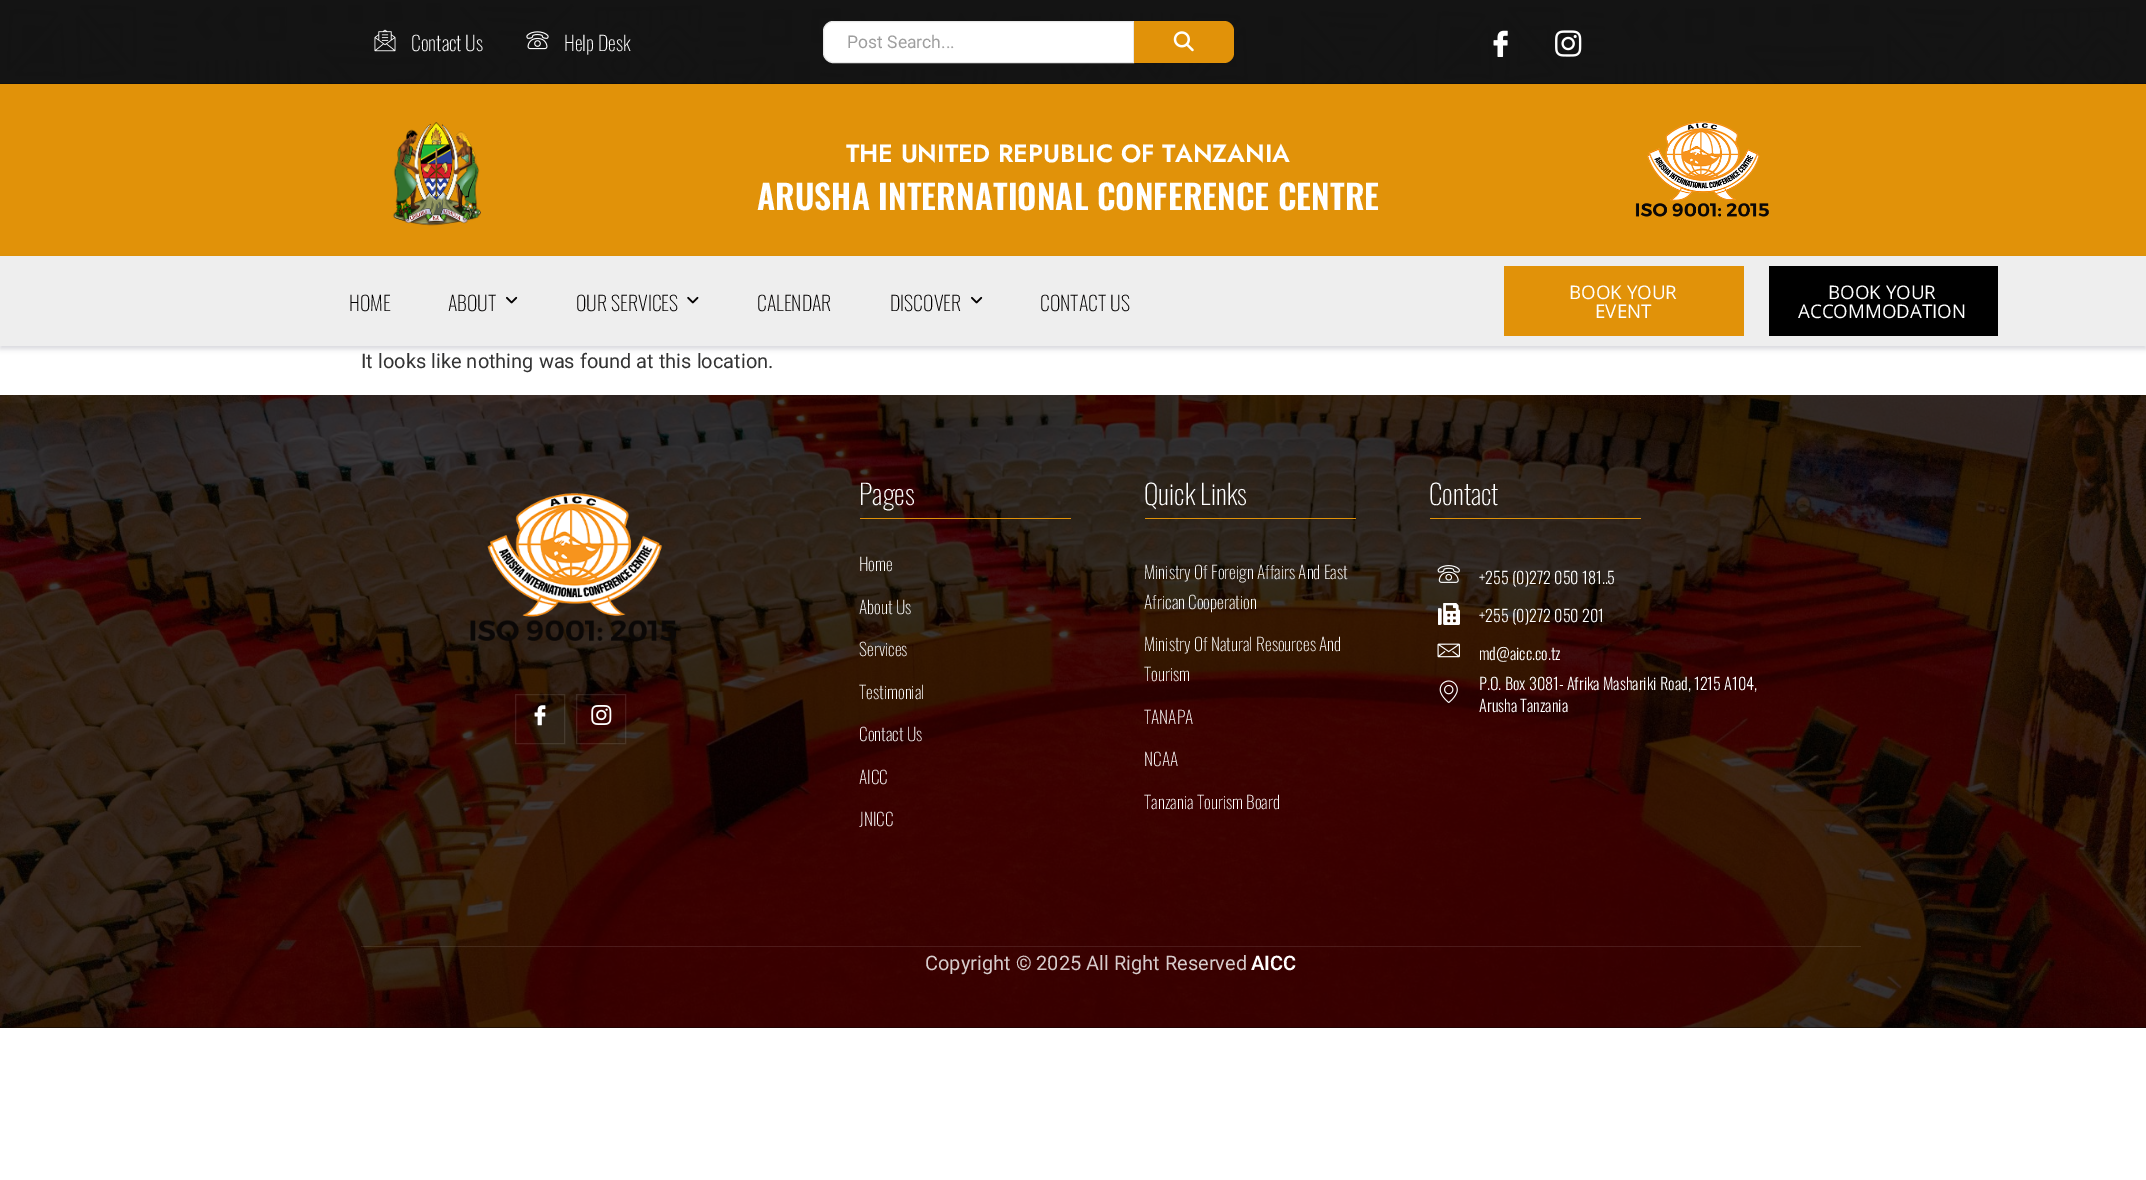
%!PS-Adobe-3.0
%%BoundingBox: 0 0 2146 1180
%%LanguageLevel: 3
%%Pages: 1
%%EndComments
%%BeginProlog
/m { moveto } bind def
/l { lineto } bind def
/c { curveto } bind def
/h { closepath } bind def
/f { fill } bind def
/S { stroke } bind def
/q { gsave } bind def
/Q { grestore } bind def
/fn { [ exch dup neg 0 0 3 -1 roll 0 0 ] selectfont } def
/tx { moveto show } def
/bx { rectfill } def
/al { dup .setfillconstantalpha .setstrokeconstantalpha } def
/rr { 5 dict begin { /r /h /w /y /x } { exch def } forall
  x r add y moveto x w add y 2 copy h add r arct x w add y h add x 1 index r arct
  x y h add x y r arct x y 2 copy exch w add exch r arct closepath end } def
/sh { 12 dict begin { /a /b /q /h /w /y /x } { exch def } forall gsave /was 0 def
  9 -2 -9 { dup b mul 4 div /e exch def 1 sub .425 mul 2.718 exch exp 1 add a .99 .min exch div /now exch def
    1 1 now sub 1 was sub div sub al /was now def
    w h .min e 2 mul add 0 gt { x e sub y e sub w e 2 mul add h e 2 mul add
      q e add b .6 mul add w h .min 2 div e add .min 0 .max rr fill } if } for grestore end } def
/im { 5 dict begin { /h /w /y /x /name } { exch def } forall
  gsave x y translate w h scale
  w h 8 [w 0 0 h 0 0] name (r) file false 3 colorimage grestore end } def
%%EndProlog
%%BeginSetup
<< /PageSize [2146 1180] /PageUsesTransparency true >> setpagedevice
%%EndSetup
%%Page: 1 1
0 .pushpdf14devicefilter
0 1180 translate 1 -1 scale
4 setmiterlimit
1 setgray
0 0 2146 1180 bx
0 setgray
0 0 2146 84 bx
(image0.raw) 0 0 2146 84 im
(image1.raw) 374 29 22 23 im
/Oswald-ExtraLight 20 fn
1 setgray
(Contact Us) 411 51 tx
(image2.raw) 526 31 23 19 im
(Help Desk) 564 51 tx
833 21.5 m 1133.5 21.5 l 1133.5 62.5 l 833 62.5 l 828 62.5 823.5 58 823.5 53 c 823.5 31 l 823.5 26 828 21.5 833 21.5 c h q f Q
0.91 setgray
S
/Roboto-Regular 17.5 fn
0.62 setgray
(Post Search...) 847 48 tx
0.882 0.573 0.035 setrgbcolor
1134 21 m 1224 21 l 1229.5 21 1234 25.5 1234 31 c 1234 53 l 1234 58.5 1229.5 63 1224 63 c 1134 63 l h f
(image3.raw) 1173 31 21 21 im
(image4.raw) 1493 30 15 27 im
(image5.raw) 1555 30 27 27 im
0 84 2146 172 bx
(image6.raw) 392 122 89 104 im
/Jost-SemiBold 25 fn
1 setgray
(THE UNITED REPUBLIC OF TANZANIA) 846 162 tx
/Oswald-SemiBold 33.75 fn
(ARUSHA INTERNATIONAL CONFERENCE CENTRE) 757 210 tx
(image7.raw) 1635 121 134 96 im
0.067 0.086 0.2 setrgbcolor
0 259 2146 90 0 2.5 0.16 sh
0.933 setgray
0 256 2146 90 bx
/Oswald-ExtraLight 20 fn
0.008 0 0 setrgbcolor
(HOME) 349 311 tx
(ABOUT) 448 311 tx
(image8.raw) 506 296 12 8 im
(OUR SERVICES) 576 311 tx
(image9.raw) 687 296 12 8 im
(CALENDAR) 757 311 tx
(DISCOVER) 890 311 tx
(image8.raw) 971 296 12 8 im
(CONTACT US) 1040 311 tx
0.882 0.573 0.035 setrgbcolor
1504 266 240 70 bx
/OpenSans-Regular 18.75 fn
1 setgray
(BOOK YOUR) 1569 299 tx
(EVENT) 1595 318 tx
0 setgray
1769 266 229 70 bx
1 setgray
(BOOK YOUR) 1828 299 tx
(ACCOMMODATION) 1798 318 tx
/Roboto-Regular 20 fn
0.2 setgray
(It looks like nothing was found at this location.) 361 368 tx
0.031 0.031 0.027 setrgbcolor
0 1027 2146 1 bx
(image10.raw) 0 395 2146 633 im
(image11.raw) 470 493 206 148 im
0.1 al
1 setgray
515.5 694.5 49 49 rectstroke
1 al
(image12.raw) 534 705 12 21 im
0.1 al
576.5 694.5 49 49 rectstroke
1 al
(image13.raw) 591 705 21 20 im
/Oswald-ExtraLight 27.5 fn
(Pages) 859 505 tx
0.882 0.573 0.035 setrgbcolor
860 518 211 1 bx
/Oswald-ExtraLight 17.5 fn
1 setgray
(Home) 859 571 tx
(About Us) 859 614 tx
(Services) 859 656 tx
(Testimonial) 859 699 tx
(Contact Us) 859 741 tx
(AICC) 859 784 tx
(JNICC) 859 826 tx
/Oswald-ExtraLight 27.5 fn
(Quick Links) 1144 505 tx
0.882 0.573 0.035 setrgbcolor
1145 518 211 1 bx
/Oswald-ExtraLight 17.5 fn
1 setgray
(Ministry Of Foreign Affairs And East) 1144 579 tx
(African Cooperation) 1144 609 tx
(Ministry Of Natural Resources And) 1144 651 tx
(Tourism) 1144 681 tx
(TANAPA) 1144 724 tx
(NCAA) 1144 766 tx
(Tanzania Tourism Board) 1144 809 tx
/Oswald-ExtraLight 27.5 fn
(Contact) 1429 505 tx
0.882 0.573 0.035 setrgbcolor
1430 518 211 1 bx
(image14.raw) 1437 565 23 18 im
/Oswald-Light 16.25 fn
1 setgray
(+255 \(0\)272 050 181..5) 1479 584 tx
(image15.raw) 1438 603 22 22 im
(+255 \(0\)272 050 201) 1479 622 tx
(image16.raw) 1437 643 23 15 im
(md@aicc.co.tz) 1479 660 tx
(image17.raw) 1439 680 19 23 im
(P.O. Box 3081- Afrika Mashariki Road, 1215 A104,) 1479 690 tx
(Arusha Tanzania) 1479 712 tx
0.1 al
361 946 1500 1 bx
/Roboto-Regular 20 fn
1 al
0.843 0.8 0.8 setrgbcolor
(Copyright © 2025 All Right Reserved) 925 970 tx
/Roboto-SemiBold 20 fn
1 setgray
(AICC) 1251 970 tx
.poppdf14devicefilter showpage
%%EOF
